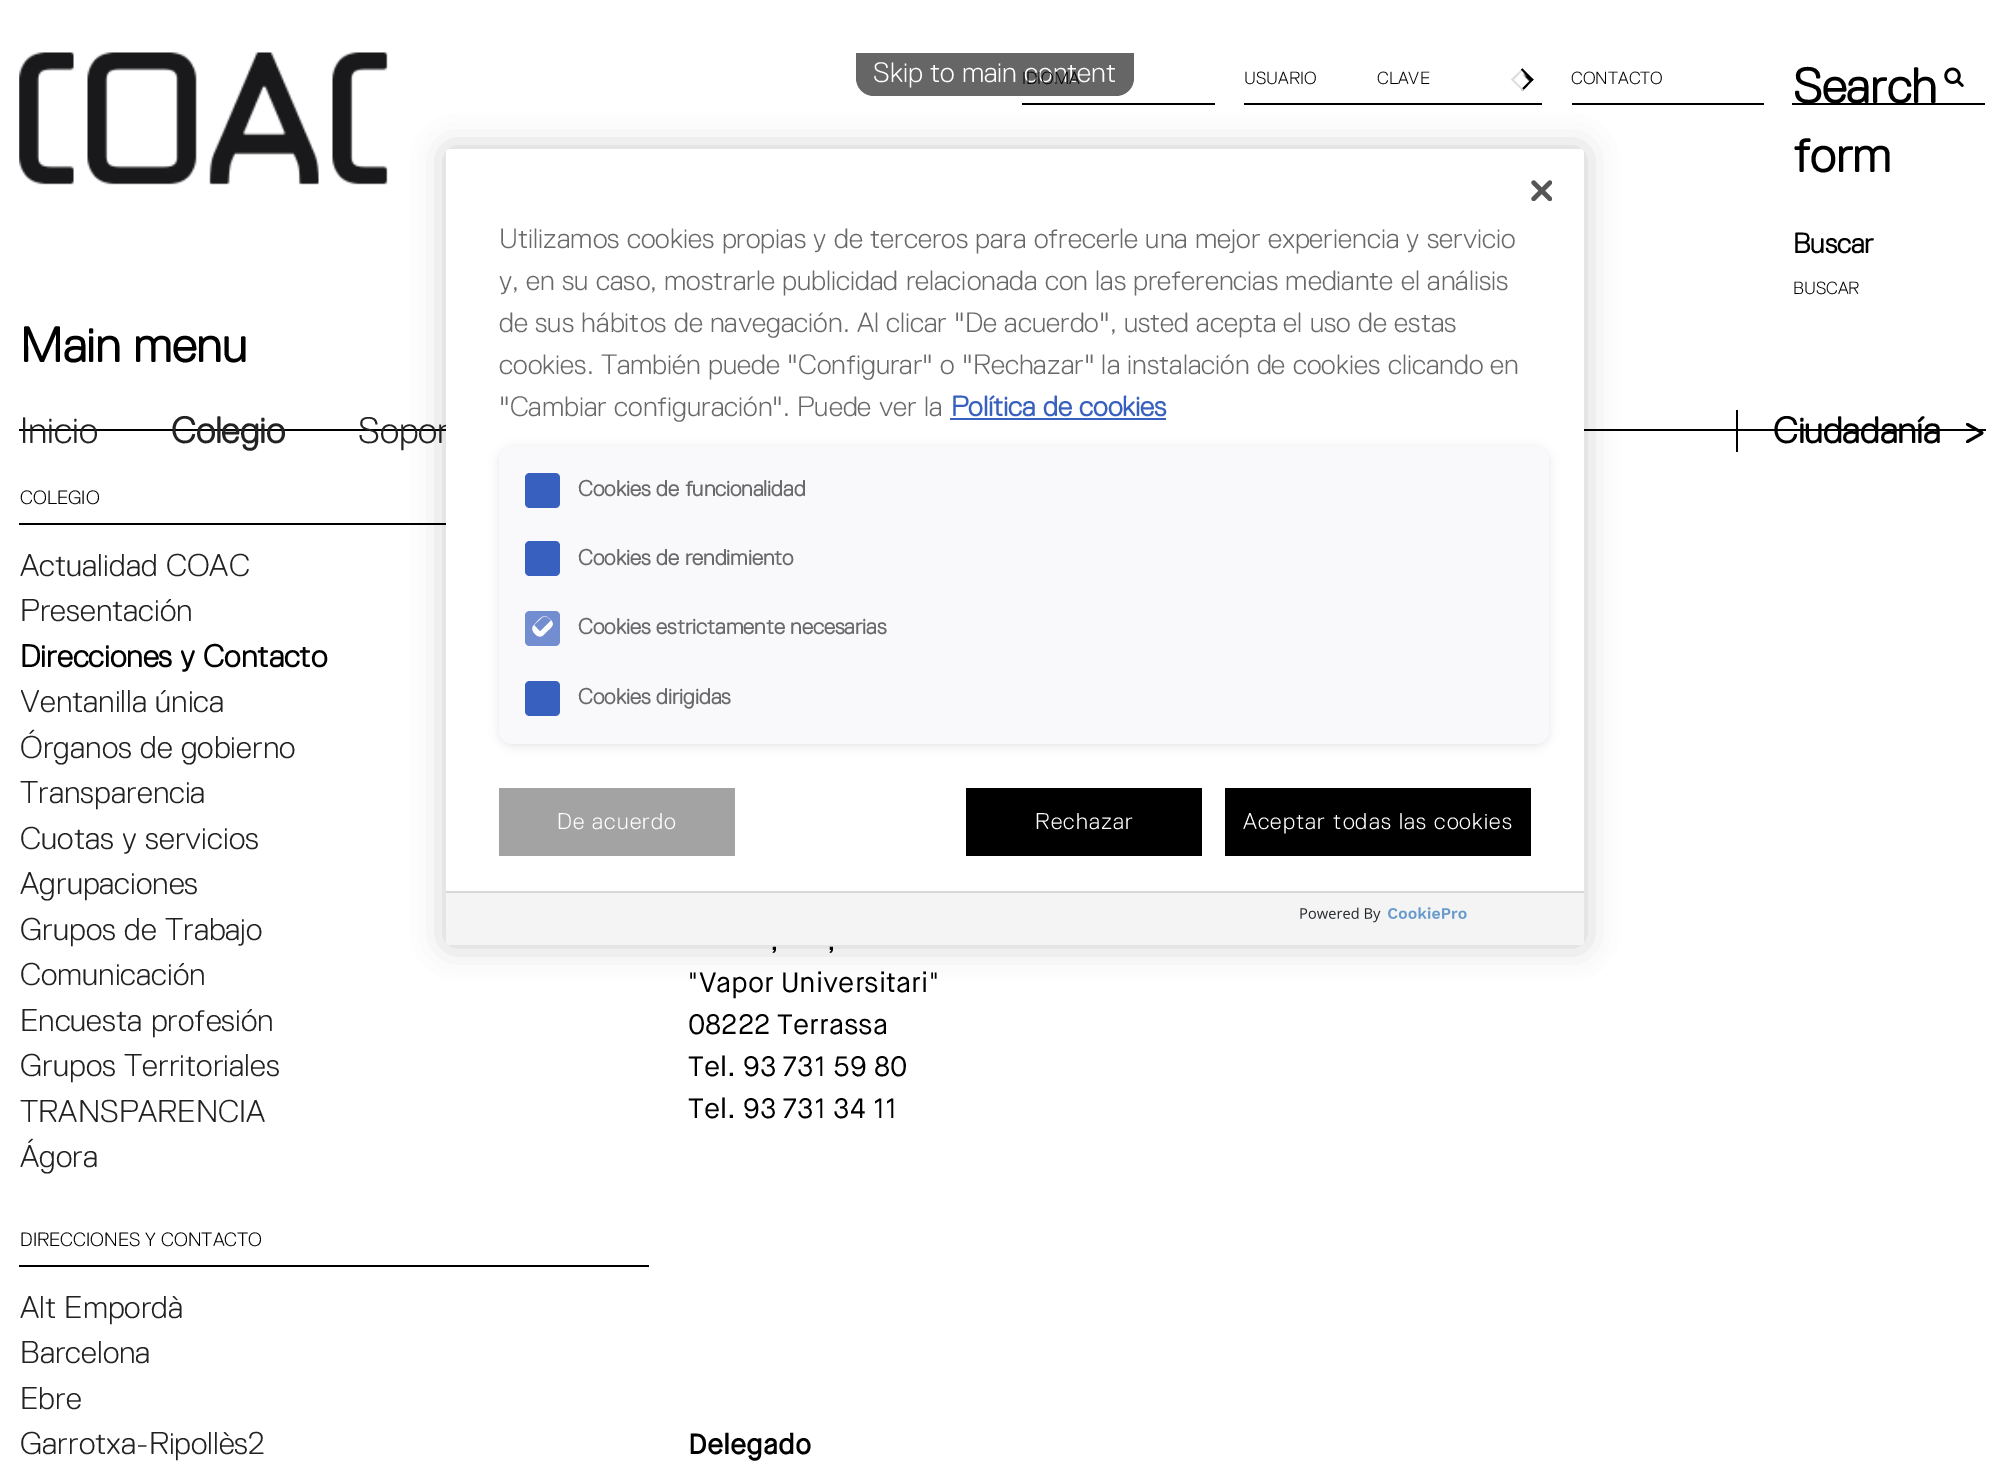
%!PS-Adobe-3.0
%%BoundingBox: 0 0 2005 1483
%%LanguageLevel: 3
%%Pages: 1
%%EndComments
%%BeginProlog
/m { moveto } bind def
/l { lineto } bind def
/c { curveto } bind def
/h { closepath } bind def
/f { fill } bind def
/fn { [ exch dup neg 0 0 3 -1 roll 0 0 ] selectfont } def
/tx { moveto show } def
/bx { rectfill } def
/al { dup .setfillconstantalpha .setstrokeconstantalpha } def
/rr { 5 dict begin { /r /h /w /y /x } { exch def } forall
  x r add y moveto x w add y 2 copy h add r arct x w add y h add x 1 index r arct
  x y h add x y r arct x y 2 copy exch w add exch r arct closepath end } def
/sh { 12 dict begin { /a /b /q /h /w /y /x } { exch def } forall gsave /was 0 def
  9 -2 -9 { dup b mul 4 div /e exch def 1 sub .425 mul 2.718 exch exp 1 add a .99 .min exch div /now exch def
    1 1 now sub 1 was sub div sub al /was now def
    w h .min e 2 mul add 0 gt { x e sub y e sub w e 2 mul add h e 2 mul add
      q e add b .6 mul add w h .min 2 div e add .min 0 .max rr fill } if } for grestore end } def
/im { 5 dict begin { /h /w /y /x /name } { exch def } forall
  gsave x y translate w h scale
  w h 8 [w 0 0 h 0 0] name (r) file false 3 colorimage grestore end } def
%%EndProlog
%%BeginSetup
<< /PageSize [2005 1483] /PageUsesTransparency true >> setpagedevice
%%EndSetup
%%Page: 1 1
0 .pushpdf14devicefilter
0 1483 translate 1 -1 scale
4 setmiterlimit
1 setgray
0 0 2005 1483 bx
0.4 setgray
856 53 m 1134 53 l 1134 78 l 1134 88 1126 96 1116 96 c 874 96 l 864 96 856 88 856 78 c h f
/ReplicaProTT-Light 28 fn
1 setgray
(Skip to main content) 873 82 tx
(image0.raw) 19 52 369 133 im
0 setgray
1022 103 193 2 bx
/ReplicaProTT-Light 17.5 fn
(IDIOMA) 1022 84 tx
1244 103 298 2 bx
(USUARIO) 1244 84 tx
(CLAVE) 1377 84 tx
(image1.raw) 1522 71 11 12 im
0.867 setgray
1511 79.5 m 1522.5 68.5 l 1523.5 69.5 l 1512.5 81 l h f
0 setgray
1521 69.5 m 1522.5 68.5 l 1533.5 79.5 l 1532 81 l h f
1521 89.5 m 1532 78.5 l 1533.5 79.5 l 1522.5 91 l h f
0.867 setgray
1511 79.5 m 1512.5 78.5 l 1523.5 89.5 l 1522.5 91 l h f
0 setgray
1572 103 192 2 bx
(CONTACTO) 1571 84 tx
1792 103 193 2 bx
/ReplicaProTT-Bold 49 fn
(Search) 1793 103 tx
(form) 1793 172 tx
/ReplicaProTT-Bold 28 fn
(Buscar) 1793 253 tx
/ReplicaProTT-Light 17.5 fn
(BUSCAR) 1793 294 tx
(image2.raw) 1944 67 20 20 im
19 429 1967 2 bx
/ReplicaProTT-Bold 49 fn
(Main menu) 20 362 tx
/ReplicaProTT-Light 36.75 fn
0.133 setgray
(Inicio) 20 443 tx
/ReplicaProTT-Bold 36.75 fn
(Colegio) 171 443 tx
/ReplicaProTT-Light 36.75 fn
(Sopor) 358 443 tx
0 setgray
1736 410 2 42 bx
/ReplicaProTT-Bold 36.75 fn
(Ciudadanía) 1773 443 tx
/ReplicaProTT-Bold 38 fn
(>) 1963 443 tx
19 523 427 2 bx
/ReplicaProTT-Light 19.25 fn
(COLEGIO) 20 504 tx
/ReplicaProTT-Light 31.5 fn
0.133 setgray
(Actualidad COAC) 20 576 tx
(Presentación) 20 621 tx
/ReplicaProTT-Bold 31.5 fn
0 setgray
(Direcciones y Contacto) 20 667 tx
/ReplicaProTT-Light 31.5 fn
0.133 setgray
(Ventanilla única) 20 712 tx
(Órganos de gobierno) 20 758 tx
(Transparencia) 20 803 tx
(Cuotas y servicios) 20 849 tx
(Agrupaciones) 20 894 tx
(Grupos de Trabajo) 20 940 tx
(Comunicación) 20 985 tx
(Encuesta profesión) 20 1031 tx
(Grupos Territoriales) 20 1076 tx
(TRANSPARENCIA) 20 1122 tx
(Ágora) 20 1167 tx
0 setgray
19 1265 630 2 bx
/ReplicaProTT-Light 19.25 fn
(DIRECCIONES Y CONTACTO) 20 1246 tx
/ReplicaProTT-Light 31.5 fn
0.133 setgray
(Alt Empordà) 20 1318 tx
(Barcelona) 20 1363 tx
(Ebre) 20 1409 tx
(Garrotxa-Ripollès2) 20 1454 tx
/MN-Regular 28 fn
0 setgray
(,) 770 950 tx
(,) 827 950 tx
("Vapor Universitari") 688 992 tx
(08222 Terrassa) 688 1034 tx
(Tel. 93 731 59 80) 688 1076 tx
(Tel. 93 731 34 11) 688 1118 tx
/MN-Bold 28 fn
(Delegado) 688 1454 tx
446 149 1138 796 4 16 0.2 sh
1 setgray
446 149 1138 796 4 rr f
(image3.raw) 1531 180 21 21 im
/ReplicaProTT-Light 28 fn
0.412 setgray
(Utilizamos cookies propias y de terceros para ofrecerle una mejor experiencia y servicio) 499 248 tx
(y, en su caso, mostrarle publicidad relacionada con las preferencias mediante el análisis) 499 290 tx
(de sus hábitos de navegación. Al clicar "De acuerdo", usted acepta el uso de estas) 499 332 tx
(cookies. También puede "Configurar" o "Rechazar" la instalación de cookies clicando en) 499 374 tx
("Cambiar configuración". Puede ver la) 499 416 tx
/ReplicaProTT-Bold 28 fn
0.22 0.376 0.745 setrgbcolor
(Política de cookies) 951 416 tx
950 418 216 2 bx
0 setgray
499 448 1050 298 14 5 0.1 sh
0.976 0.976 0.988 setrgbcolor
499 446 1050 298 14 rr f
0.22 0.376 0.745 setrgbcolor
530 473 m 555 473 l 558 473 560 475 560 478 c 560 503 l 560 506 558 508 555 508 c 530 508 l 527 508 525 506 525 503 c 525 478 l 525 475 527 473 530 473 c h f
/ReplicaProTT-Bold 22 fn
0.412 setgray
(Cookies de funcionalidad) 578 496 tx
0.22 0.376 0.745 setrgbcolor
530 541 m 555 541 l 558 541 560 543 560 546 c 560 571 l 560 574 558 576 555 576 c 530 576 l 527 576 525 574 525 571 c 525 546 l 525 543 527 541 530 541 c h f
0.412 setgray
(Cookies de rendimiento) 578 565 tx
0.447 0.557 0.82 setrgbcolor
530 611 m 555 611 l 558 611 560 613 560 616 c 560 641 l 560 644 558 646 555 646 c 530 646 l 527 646 525 644 525 641 c 525 616 l 525 613 527 611 530 611 c h f
0.992 0.992 0.996 setrgbcolor
534 625 m 540 631.5 l 551 620.5 l 548.5 618 l 554.5 623 554 625 548.5 630 c 543.5 635 l 540.5 638 537.5 636.5 535 634 c 532.5 631.5 531 628 534 625 c h 534 625 m 537.5 621.5 543 612.5 548.5 618 c 546.5 616 543.5 616 541.5 618 c h eofill
0.412 setgray
(Cookies estrictamente necesarias) 578 634 tx
0.22 0.376 0.745 setrgbcolor
530 681 m 555 681 l 558 681 560 683 560 686 c 560 711 l 560 714 558 716 555 716 c 530 716 l 527 716 525 714 525 711 c 525 686 l 525 683 527 681 530 681 c h f
0.412 setgray
(Cookies dirigidas) 578 704 tx
0.639 setgray
499 788 236 68 bx
/ReplicaProTT-Light 22.75 fn
1 setgray
557 829 m 1.1 0 (De acuerdo) ashow
0 setgray
966 788 236 68 bx
1 setgray
1035 829 m 1.1 0 (Rechazar) ashow
0 setgray
1225 788 306 68 bx
1 setgray
1243 829 m 1.1 0 (Aceptar todas las cookies) ashow
0.957 setgray
446 891 m 1584 891 l 1584 941 l 1584 943 1582 945 1580 945 c 450 945 l 448 945 446 943 446 941 c h f
0.847 setgray
446 891 1138 2 bx
(image4.raw) 1300 907 167 16 im
.poppdf14devicefilter showpage
%%EOF
